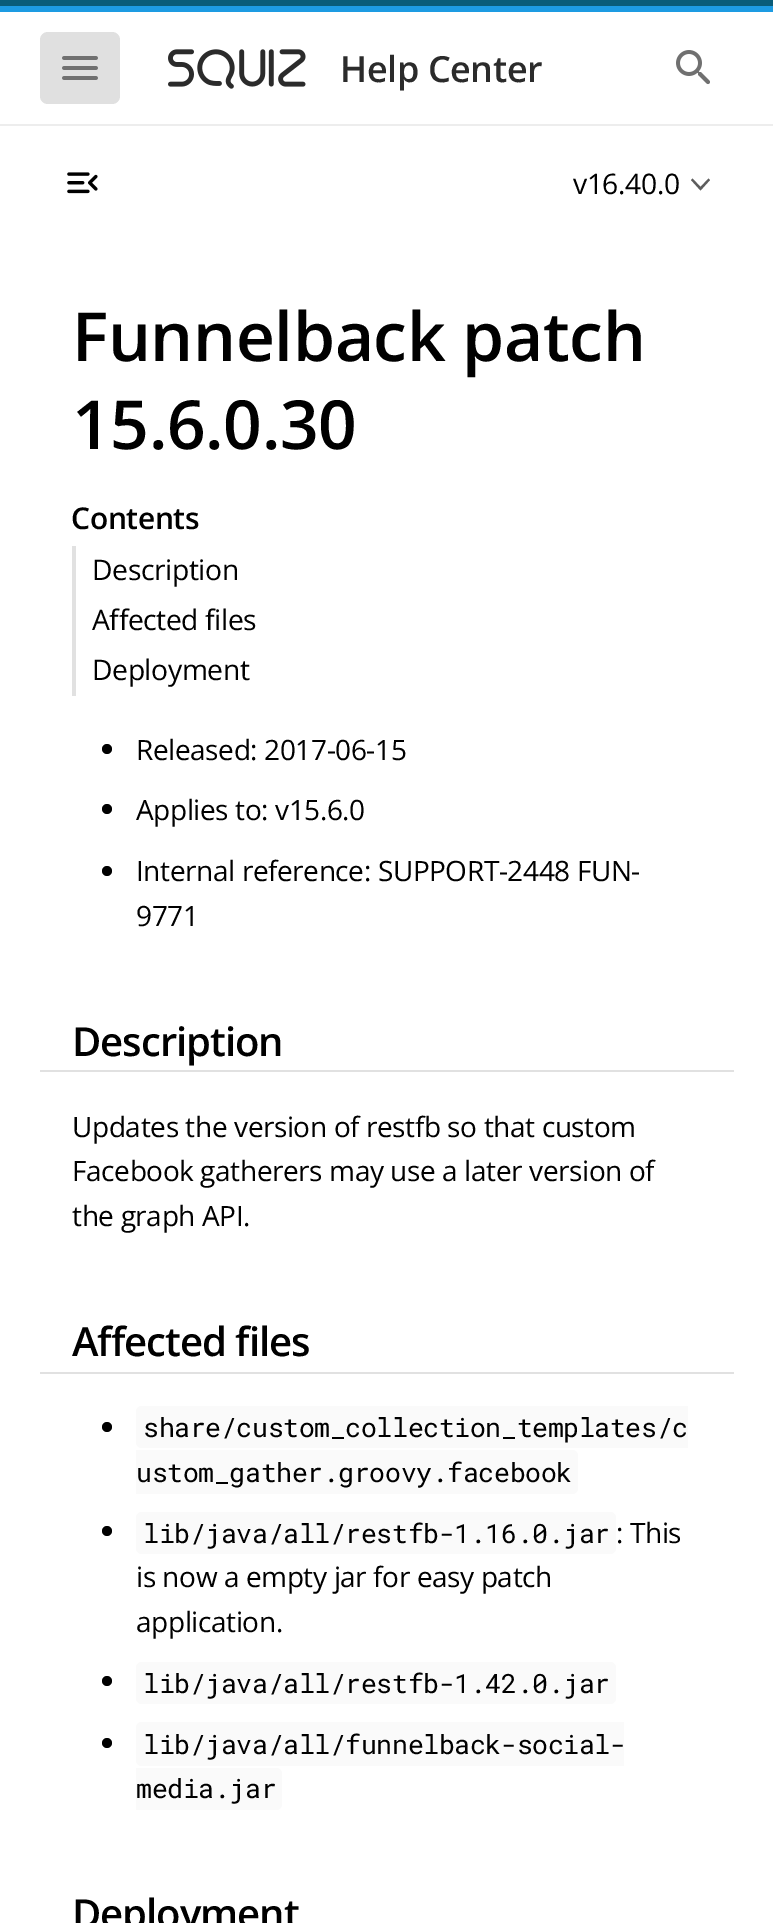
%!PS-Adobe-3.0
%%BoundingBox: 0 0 773 1923
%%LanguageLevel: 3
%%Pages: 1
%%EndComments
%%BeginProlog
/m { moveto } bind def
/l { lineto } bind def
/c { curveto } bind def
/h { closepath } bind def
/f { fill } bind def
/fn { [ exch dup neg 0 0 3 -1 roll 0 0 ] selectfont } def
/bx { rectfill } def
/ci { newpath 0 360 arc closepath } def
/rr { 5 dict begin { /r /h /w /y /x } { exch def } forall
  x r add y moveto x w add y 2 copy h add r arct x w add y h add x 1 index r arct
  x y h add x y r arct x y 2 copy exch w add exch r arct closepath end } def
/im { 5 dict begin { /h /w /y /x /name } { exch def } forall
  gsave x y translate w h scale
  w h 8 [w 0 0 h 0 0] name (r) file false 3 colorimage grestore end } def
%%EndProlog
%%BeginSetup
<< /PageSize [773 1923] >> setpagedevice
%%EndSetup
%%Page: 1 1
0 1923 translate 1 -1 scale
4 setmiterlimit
1 setgray
0 0 773 1923 bx
0.929 setgray
0 124 773 2 bx
0.035 0.361 0.471 setrgbcolor
0 0 773 6 bx
0.114 0.608 0.886 setrgbcolor
0 6 773 6 bx
0.878 setgray
40 32 80 72 8 rr f
(image0.raw) 62 56 36 24 im
(image1.raw) 168 49 138 40 im
/OpenSans-SemiBold 36 fn
0.169 setgray
340 82 m -0.4 0 (Help Center) ashow
(image2.raw) 676 50 34 35 im
(image3.raw) 67 172 31 22 im
0.365 setgray
692.5 178.5 m 691 180 l 700.5 190.5 l 710 180 l 708.5 178.5 l 700.5 187 l h f
/OpenSans-Regular 28.25 fn
0 setgray
573 194 m -0.4 0 (v16.40.0) ashow
/OpenSans-SemiBold 67.75 fn
72 361 m -0.4 0 (Funnelback patch) ashow
72 449 m -0.4 0 (15.6.0.30) ashow
/OpenSans-SemiBold 30 fn
71 529 m -0.4 0 (Contents) ashow
0.882 setgray
72 546 4 150 bx
/OpenSans-Regular 28.25 fn
0 setgray
92 580 m -0.4 0 (Description) ashow
92 630 m -0.4 0 (Affected files) ashow
92 680 m -0.4 0 (Deployment) ashow
107 749 5 ci f
/OpenSans-Regular 28 fn
136 760 m -0.4 0 (Released: 2017-06-15) ashow
107 809 5 ci f
136 820 m -0.4 0 (Applies to: v15.6.0) ashow
107 871 5 ci f
136 881 m -0.4 0 (Internal reference: SUPPORT-2448 FUN-) ashow
136 926 m -0.4 0 (9771) ashow
0.882 setgray
40 1070 694 2 bx
/OpenSans-SemiBold 40 fn
0 setgray
72 1056 m -1 0 (Description) ashow
/OpenSans-Regular 28 fn
72 1137 m -0.4 0 (Updates the version of restfb so that custom) ashow
72 1181 m -0.4 0 (Facebook gatherers may use a later version of) ashow
72 1226 m -0.4 0 (the graph API.) ashow
0.882 setgray
40 1372 694 2 bx
/OpenSans-SemiBold 40 fn
0 setgray
72 1356 m -1 0 (Affected files) ashow
107 1427 5 ci f
0.98 setgray
142 1406 m 688 1406 l 688 1448 l 142 1448 l 138.5 1448 136 1445.5 136 1442 c 136 1412 l 136 1408.5 138.5 1406 142 1406 c h f
/RobotoMono-Regular 26.6 fn
0 setgray
143 1437 m -0.4 0 (share/custom_collection_templates/c) ashow
0.98 setgray
136 1450 m 572 1450 l 575.5 1450 578 1452.5 578 1456 c 578 1488 l 578 1491.5 575.5 1494 572 1494 c 136 1494 l h f
0 setgray
136 1482 m -0.4 0 (ustom_gather.groovy.facebook) ashow
107 1531 5 ci f
0.98 setgray
136 1512 480 42 6 rr f
0 setgray
143 1543 m -0.4 0 (lib/java/all/restfb-1.16.0.jar) ashow
/OpenSans-Regular 28 fn
616 1543 m -0.4 0 (: This) ashow
136 1587 m -0.4 0 (is now a empty jar for easy patch) ashow
136 1632 m -0.4 0 (application.) ashow
107 1681 5 ci f
0.98 setgray
136 1662 480 42 6 rr f
/RobotoMono-Regular 26.6 fn
0 setgray
143 1693 m -0.4 0 (lib/java/all/restfb-1.42.0.jar) ashow
107 1743 5 ci f
0.98 setgray
142 1722 m 624 1722 l 624 1766 l 142 1766 l 138.5 1766 136 1763.5 136 1760 c 136 1728 l 136 1724.5 138.5 1722 142 1722 c h f
0 setgray
143 1754 m -0.4 0 (lib/java/all/funnelback-social-) ashow
0.98 setgray
136 1768 m 276 1768 l 279.5 1768 282 1770.5 282 1774 c 282 1804 l 282 1807.5 279.5 1810 276 1810 c 136 1810 l h f
0 setgray
136 1798 m -0.4 0 (media.jar) ashow
/OpenSans-SemiBold 40 fn
72 1928 m -1 0 (Deployment) ashow
showpage
%%EOF
